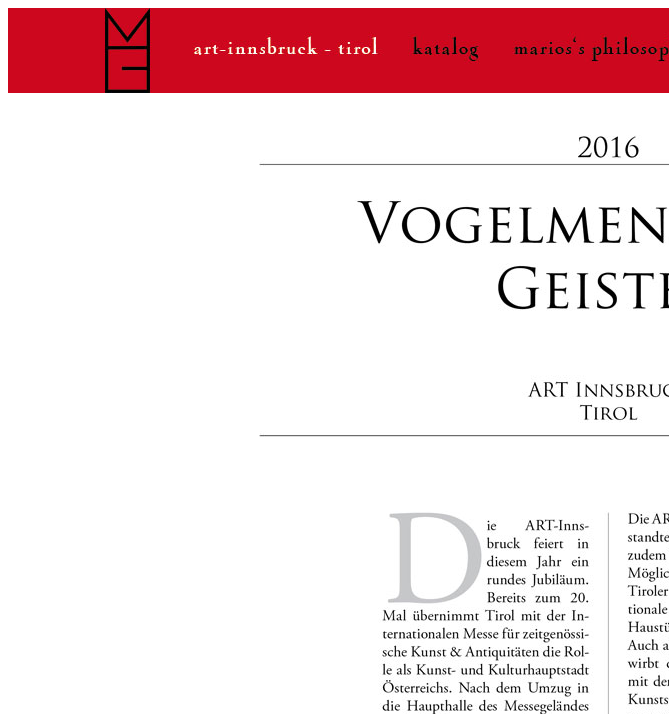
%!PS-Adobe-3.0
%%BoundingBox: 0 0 669 714
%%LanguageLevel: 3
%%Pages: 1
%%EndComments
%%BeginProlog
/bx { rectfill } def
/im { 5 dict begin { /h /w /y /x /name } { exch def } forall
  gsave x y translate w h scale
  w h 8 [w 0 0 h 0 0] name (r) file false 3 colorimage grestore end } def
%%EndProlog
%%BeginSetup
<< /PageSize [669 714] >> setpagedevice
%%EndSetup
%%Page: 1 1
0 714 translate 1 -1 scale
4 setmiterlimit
1 setgray
0 0 669 714 bx
(image0.raw) 8 8 661 85 im
(image1.raw) 259 135 410 579 im
showpage
%%EOF
